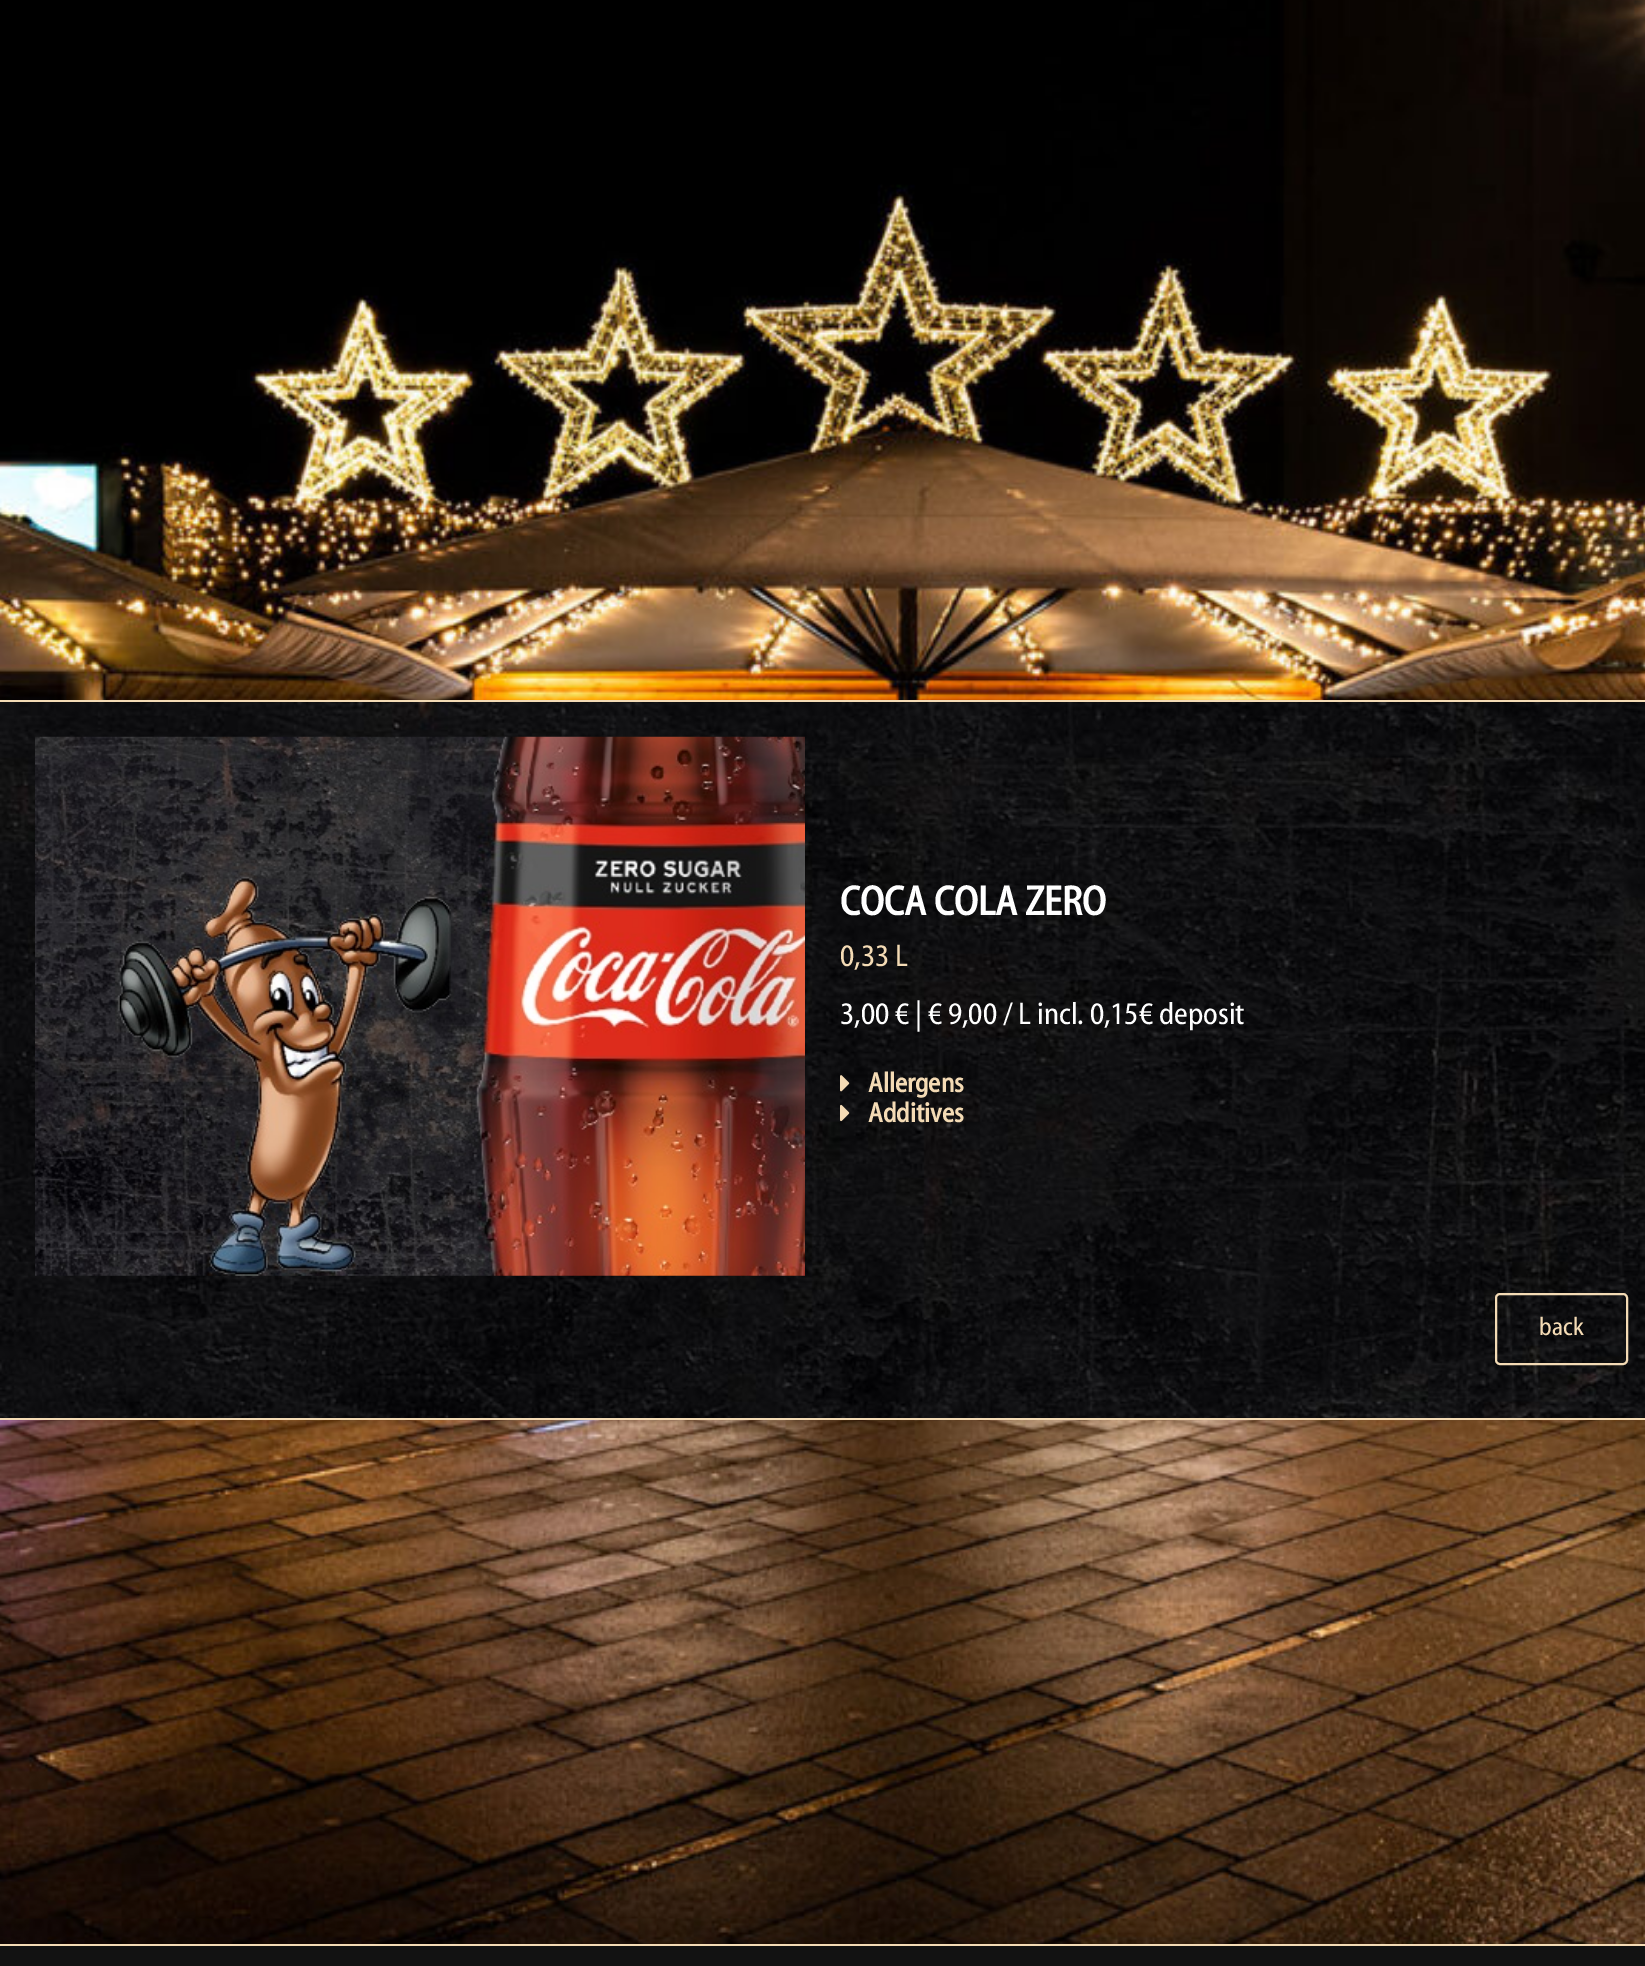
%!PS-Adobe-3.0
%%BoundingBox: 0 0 1645 1966
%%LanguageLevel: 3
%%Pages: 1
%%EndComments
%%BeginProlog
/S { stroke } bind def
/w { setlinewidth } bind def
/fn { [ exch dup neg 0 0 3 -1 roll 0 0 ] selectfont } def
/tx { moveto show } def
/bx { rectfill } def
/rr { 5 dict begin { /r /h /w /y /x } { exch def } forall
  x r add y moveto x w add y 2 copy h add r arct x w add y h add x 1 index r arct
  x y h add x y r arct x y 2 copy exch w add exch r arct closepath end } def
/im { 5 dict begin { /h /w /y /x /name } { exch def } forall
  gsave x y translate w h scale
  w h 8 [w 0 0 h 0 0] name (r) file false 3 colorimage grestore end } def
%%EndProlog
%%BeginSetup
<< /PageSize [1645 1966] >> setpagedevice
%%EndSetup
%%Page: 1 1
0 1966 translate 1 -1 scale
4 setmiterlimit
1 setgray
0 0 1645 1966 bx
(image0.raw) 0 0 1645 1944 im
(image1.raw) 0 702 1645 716 im
0.957 0.859 0.71 setrgbcolor
0 700 1645 2 bx
0 1418 1645 2 bx
(image2.raw) 35 736 770 540 im
/Myriad-Bold 42 fn
1 setgray
(COCA COLA ZERO) 840 915 tx
/Myriad-Regular 31.5 fn
0.957 0.859 0.71 setrgbcolor
(0,33 L) 840 966 tx
1 setgray
(3,00 € | € 9,00 / L incl. 0,15€ deposit) 840 1024 tx
(image3.raw) 840 1075 10 17 im
/Myriad-Bold 28 fn
0.957 0.859 0.71 setrgbcolor
(Allergens) 868 1092 tx
(image4.raw) 840 1104 10 18 im
(Additives) 868 1122 tx
2 w
1496 1294 131 70 4 rr S
/Myriad-Regular 26 fn
(back) 1539 1335 tx
0.071 setgray
0 1946 1645 20 bx
0.957 0.859 0.71 setrgbcolor
0 1944 1645 2 bx
showpage
%%EOF
